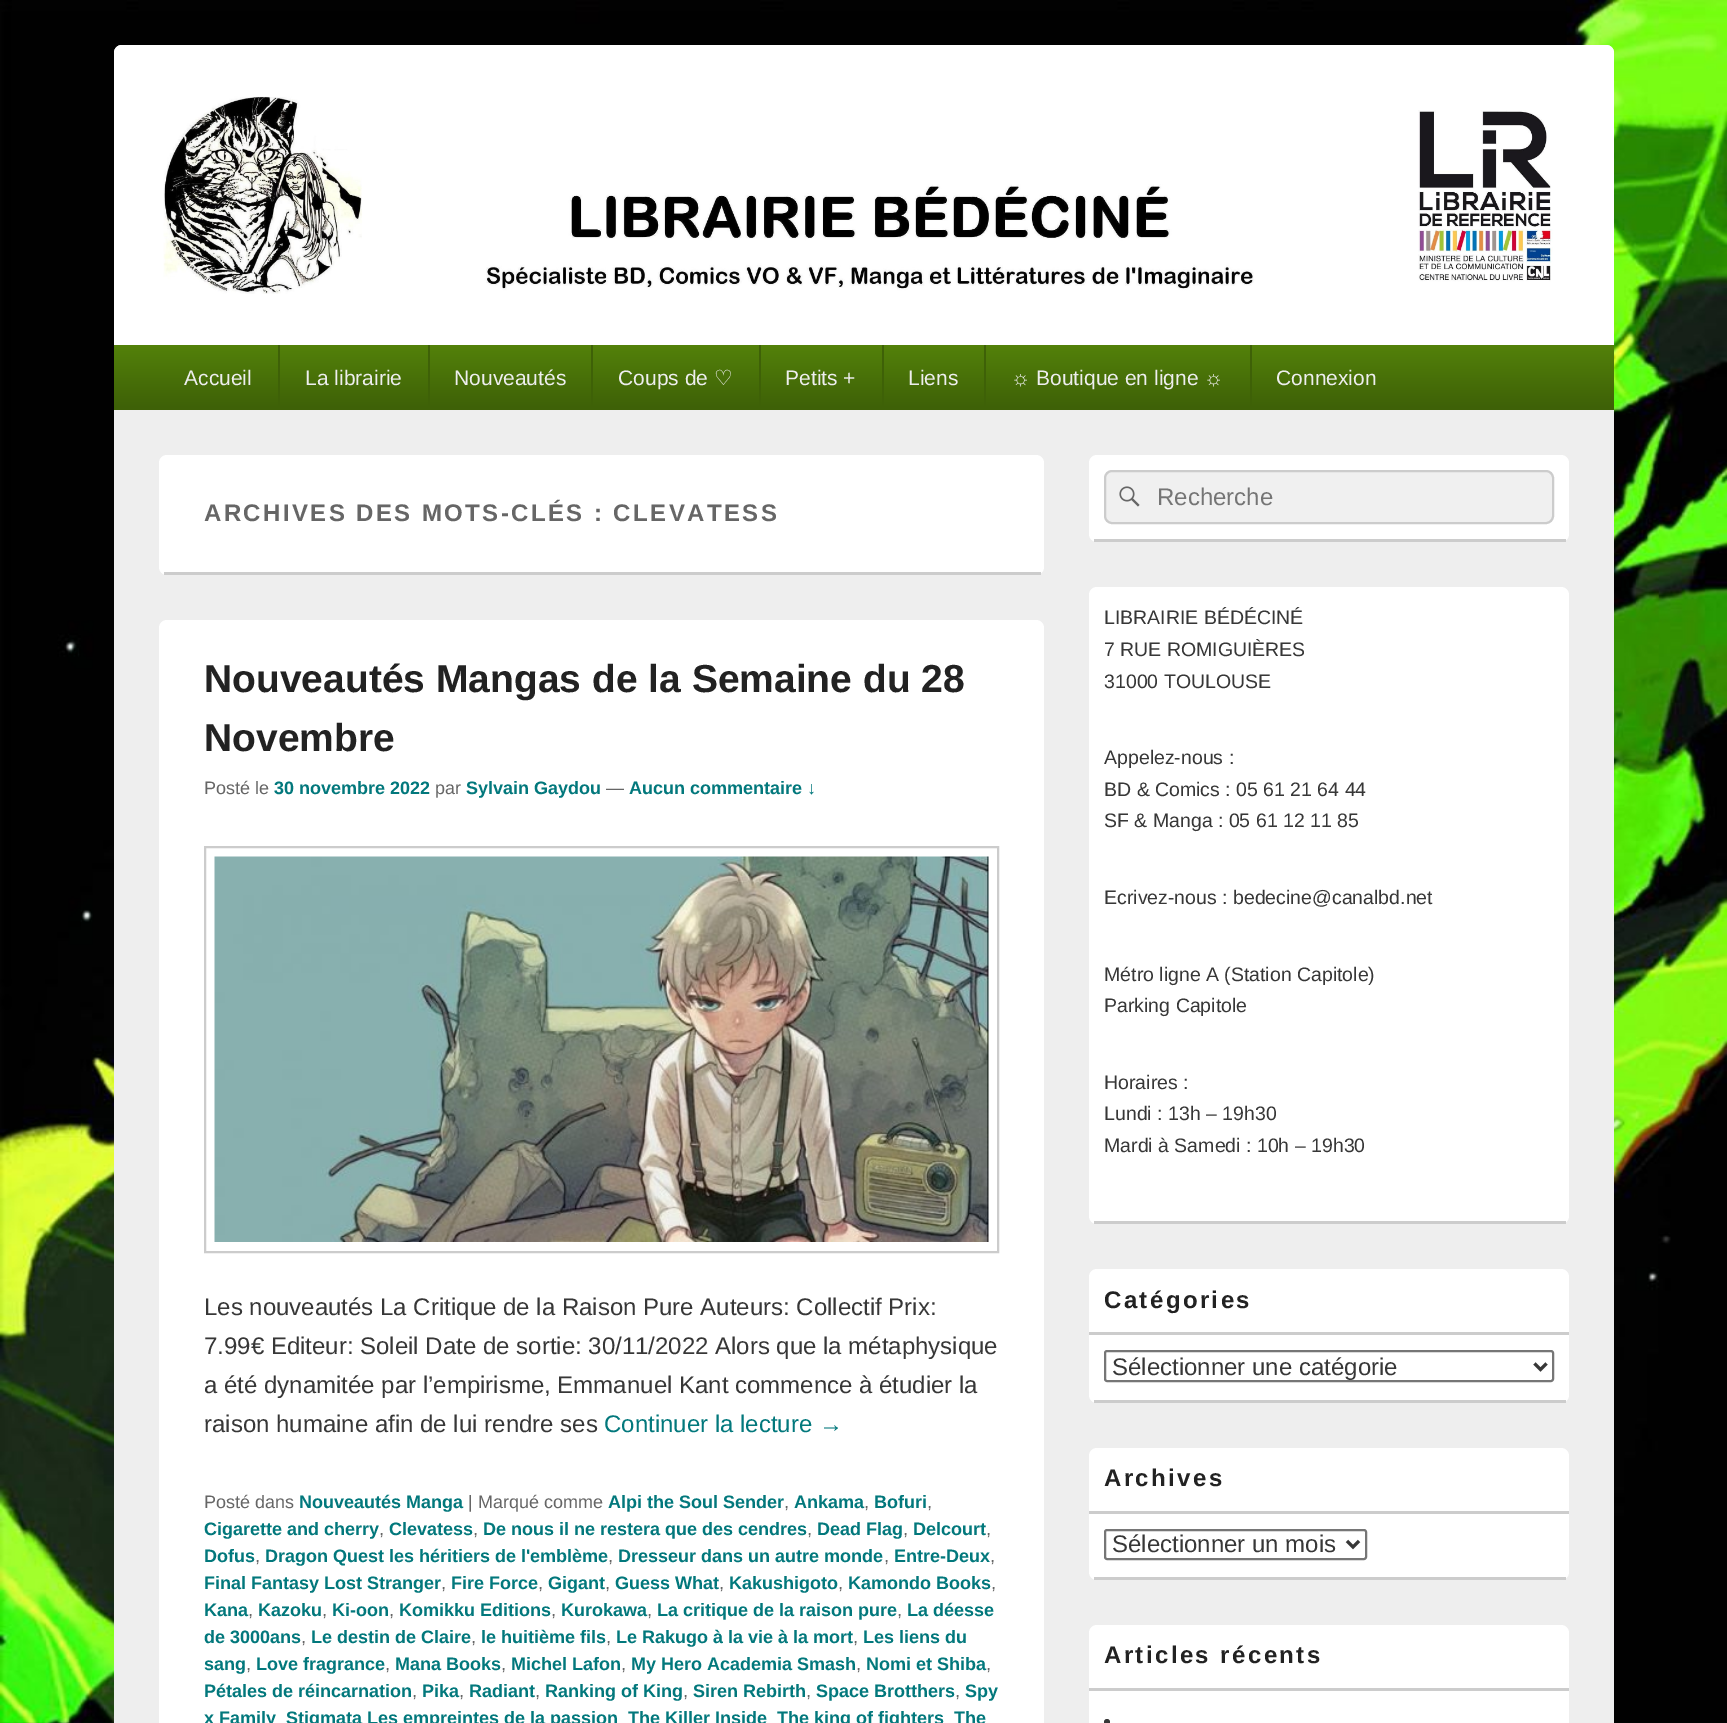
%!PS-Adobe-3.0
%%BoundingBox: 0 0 1727 1723
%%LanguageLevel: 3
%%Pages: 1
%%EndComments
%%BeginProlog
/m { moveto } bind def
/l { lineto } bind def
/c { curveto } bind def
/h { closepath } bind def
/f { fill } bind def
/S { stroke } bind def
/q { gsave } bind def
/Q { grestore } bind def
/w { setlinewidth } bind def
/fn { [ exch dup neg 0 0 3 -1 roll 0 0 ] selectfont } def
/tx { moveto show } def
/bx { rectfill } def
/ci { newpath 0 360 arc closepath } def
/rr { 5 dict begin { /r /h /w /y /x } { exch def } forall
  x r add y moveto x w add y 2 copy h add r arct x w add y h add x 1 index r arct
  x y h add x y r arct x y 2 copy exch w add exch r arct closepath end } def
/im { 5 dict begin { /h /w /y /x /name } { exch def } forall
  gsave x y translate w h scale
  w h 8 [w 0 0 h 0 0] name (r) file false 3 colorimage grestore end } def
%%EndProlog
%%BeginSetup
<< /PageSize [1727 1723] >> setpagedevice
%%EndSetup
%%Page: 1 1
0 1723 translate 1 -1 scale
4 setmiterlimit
1 setgray
0 0 1727 1723 bx
(image0.raw) 0 0 1727 1723 im
0.933 setgray
114 45 1500 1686 8 rr f
1 setgray
122 45 m 1606 45 l 1610.5 45 1614 48.5 1614 53 c 1614 410 l 114 410 l 114 53 l 114 48.5 117.5 45 122 45 c h f
(image1.raw) 163 96 1390 198 im
q 114 345 m 1614 345 l 1614 408 l 114 408 l h clip newpath
<< /ShadingType 2 /ColorSpace /DeviceRGB /Coords [864 345 864 408] /Extend [true true] /Function << /FunctionType 2 /Domain [0 1] /C0 [0.325 0.506 0.039] /C1 [0.243 0.38 0.027] /N 1 >> >> shfill Q
0.243 0.38 0.027 setrgbcolor
114 408 1500 2 bx
/LiberationSans-Regular 21 fn
0.933 setgray
(Accueil) 184 385 tx
0.243 0.38 0.027 setrgbcolor
278 345 2 63 bx
0.933 setgray
(La librairie) 305 385 tx
0.243 0.38 0.027 setrgbcolor
428 345 2 63 bx
0.933 setgray
(Nouveautés) 454 385 tx
0.243 0.38 0.027 setrgbcolor
591 345 2 63 bx
0.933 setgray
(Coups de) 618 385 tx
/DejaVuSans-Regular 21 fn
(♡) 714 385 tx
0.243 0.38 0.027 setrgbcolor
759 345 2 63 bx
/LiberationSans-Regular 21 fn
0.933 setgray
(Petits +) 785 385 tx
0.243 0.38 0.027 setrgbcolor
882 345 2 63 bx
0.933 setgray
(Liens) 908 385 tx
0.243 0.38 0.027 setrgbcolor
984 345 2 63 bx
0.933 setgray
(☼ Boutique en ligne ☼) 1011 385 tx
0.243 0.38 0.027 setrgbcolor
1250 345 2 63 bx
0.933 setgray
(Connexion) 1276 385 tx
1 setgray
159 455 885 120 8 rr f
0.8 setgray
164 572 877 3 bx
/LiberationSans-Bold 24 fn
0.4 setgray
204 521 m 2.4 0 (ARCHIVES DES MOTS-CLÉS : CLEVATESS) ashow
1 setgray
159 620 885 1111 8 rr f
/LiberationSans-Bold 39 fn
0.133 setgray
(Nouveautés Mangas de la Semaine du 28) 204 692 tx
(Novembre) 204 751 tx
/LiberationSans-Regular 18 fn
0.4 setgray
(Posté le) 204 794 tx
/LiberationSans-Bold 18 fn
0.008 0.471 0.486 setrgbcolor
(30 novembre 2022) 274 794 tx
/LiberationSans-Regular 18 fn
0.4 setgray
(par) 435 794 tx
/LiberationSans-Bold 18 fn
0.008 0.471 0.486 setrgbcolor
(Sylvain Gaydou) 466 794 tx
/LiberationSans-Regular 18 fn
0.4 setgray
(—) 606 794 tx
/LiberationSans-Bold 18 fn
0.008 0.471 0.486 setrgbcolor
(Aucun commentaire ↓) 629 794 tx
0.8 setgray
2 w
205 847 793 405 rectstroke
(image2.raw) 214 856 775 386 im
/LiberationSans-Regular 24 fn
0.216 setgray
(Les nouveautés La Critique de la Raison Pure Auteurs: Collectif Prix:) 204 1315 tx
(7.99€ Editeur: Soleil Date de sortie: 30/11/2022 Alors que la métaphysique) 204 1354 tx
(a été dynamitée par l’empirisme, Emmanuel Kant commence à étudier la) 204 1393 tx
(raison humaine afin de lui rendre ses) 204 1432 tx
0.008 0.471 0.486 setrgbcolor
(Continuer la lecture →) 604 1432 tx
/LiberationSans-Regular 18 fn
0.4 setgray
(Posté dans) 204 1508 tx
/LiberationSans-Bold 18 fn
0.008 0.471 0.486 setrgbcolor
(Nouveautés Manga) 299 1508 tx
/LiberationSans-Regular 18 fn
0.4 setgray
(| Marqué comme) 468 1508 tx
/LiberationSans-Bold 18 fn
0.008 0.471 0.486 setrgbcolor
(Alpi the Soul Sender) 608 1508 tx
/LiberationSans-Regular 18 fn
0.4 setgray
(,) 784 1508 tx
/LiberationSans-Bold 18 fn
0.008 0.471 0.486 setrgbcolor
(Ankama) 794 1508 tx
/LiberationSans-Regular 18 fn
0.4 setgray
(,) 864 1508 tx
/LiberationSans-Bold 18 fn
0.008 0.471 0.486 setrgbcolor
(Bofuri) 874 1508 tx
/LiberationSans-Regular 18 fn
0.4 setgray
(,) 927 1508 tx
/LiberationSans-Bold 18 fn
0.008 0.471 0.486 setrgbcolor
(Cigarette and cherry) 204 1535 tx
/LiberationSans-Regular 18 fn
0.4 setgray
(,) 379 1535 tx
/LiberationSans-Bold 18 fn
0.008 0.471 0.486 setrgbcolor
(Clevatess) 389 1535 tx
/LiberationSans-Regular 18 fn
0.4 setgray
(,) 473 1535 tx
/LiberationSans-Bold 18 fn
0.008 0.471 0.486 setrgbcolor
(De nous il ne restera que des cendres) 483 1535 tx
/LiberationSans-Regular 18 fn
0.4 setgray
(,) 807 1535 tx
/LiberationSans-Bold 18 fn
0.008 0.471 0.486 setrgbcolor
(Dead Flag) 817 1535 tx
/LiberationSans-Regular 18 fn
0.4 setgray
(,) 903 1535 tx
/LiberationSans-Bold 18 fn
0.008 0.471 0.486 setrgbcolor
(Delcourt) 913 1535 tx
/LiberationSans-Regular 18 fn
0.4 setgray
(,) 986 1535 tx
/LiberationSans-Bold 18 fn
0.008 0.471 0.486 setrgbcolor
(Dofus) 204 1562 tx
/LiberationSans-Regular 18 fn
0.4 setgray
(,) 255 1562 tx
/LiberationSans-Bold 18 fn
0.008 0.471 0.486 setrgbcolor
(Dragon Quest les héritiers de l'emblème) 265 1562 tx
/LiberationSans-Regular 18 fn
0.4 setgray
(,) 608 1562 tx
/LiberationSans-Bold 18 fn
0.008 0.471 0.486 setrgbcolor
(Dresseur dans un autre monde) 618 1562 tx
/LiberationSans-Regular 18 fn
0.4 setgray
(,) 884 1562 tx
/LiberationSans-Bold 18 fn
0.008 0.471 0.486 setrgbcolor
(Entre-Deux) 894 1562 tx
/LiberationSans-Regular 18 fn
0.4 setgray
(,) 990 1562 tx
/LiberationSans-Bold 18 fn
0.008 0.471 0.486 setrgbcolor
(Final Fantasy Lost Stranger) 204 1589 tx
/LiberationSans-Regular 18 fn
0.4 setgray
(,) 441 1589 tx
/LiberationSans-Bold 18 fn
0.008 0.471 0.486 setrgbcolor
(Fire Force) 451 1589 tx
/LiberationSans-Regular 18 fn
0.4 setgray
(,) 538 1589 tx
/LiberationSans-Bold 18 fn
0.008 0.471 0.486 setrgbcolor
(Gigant) 548 1589 tx
/LiberationSans-Regular 18 fn
0.4 setgray
(,) 605 1589 tx
/LiberationSans-Bold 18 fn
0.008 0.471 0.486 setrgbcolor
(Guess What) 615 1589 tx
/LiberationSans-Regular 18 fn
0.4 setgray
(,) 719 1589 tx
/LiberationSans-Bold 18 fn
0.008 0.471 0.486 setrgbcolor
(Kakushigoto) 729 1589 tx
/LiberationSans-Regular 18 fn
0.4 setgray
(,) 838 1589 tx
/LiberationSans-Bold 18 fn
0.008 0.471 0.486 setrgbcolor
(Kamondo Books) 848 1589 tx
/LiberationSans-Regular 18 fn
0.4 setgray
(,) 991 1589 tx
/LiberationSans-Bold 18 fn
0.008 0.471 0.486 setrgbcolor
(Kana) 204 1616 tx
/LiberationSans-Regular 18 fn
0.4 setgray
(,) 248 1616 tx
/LiberationSans-Bold 18 fn
0.008 0.471 0.486 setrgbcolor
(Kazoku) 258 1616 tx
/LiberationSans-Regular 18 fn
0.4 setgray
(,) 322 1616 tx
/LiberationSans-Bold 18 fn
0.008 0.471 0.486 setrgbcolor
(Ki-oon) 332 1616 tx
/LiberationSans-Regular 18 fn
0.4 setgray
(,) 389 1616 tx
/LiberationSans-Bold 18 fn
0.008 0.471 0.486 setrgbcolor
(Komikku Editions) 399 1616 tx
/LiberationSans-Regular 18 fn
0.4 setgray
(,) 551 1616 tx
/LiberationSans-Bold 18 fn
0.008 0.471 0.486 setrgbcolor
(Kurokawa) 561 1616 tx
/LiberationSans-Regular 18 fn
0.4 setgray
(,) 647 1616 tx
/LiberationSans-Bold 18 fn
0.008 0.471 0.486 setrgbcolor
(La critique de la raison pure) 657 1616 tx
/LiberationSans-Regular 18 fn
0.4 setgray
(,) 897 1616 tx
/LiberationSans-Bold 18 fn
0.008 0.471 0.486 setrgbcolor
(La déesse) 907 1616 tx
(de 3000ans) 204 1643 tx
/LiberationSans-Regular 18 fn
0.4 setgray
(,) 301 1643 tx
/LiberationSans-Bold 18 fn
0.008 0.471 0.486 setrgbcolor
(Le destin de Claire) 311 1643 tx
/LiberationSans-Regular 18 fn
0.4 setgray
(,) 471 1643 tx
/LiberationSans-Bold 18 fn
0.008 0.471 0.486 setrgbcolor
(le huitième fils) 481 1643 tx
/LiberationSans-Regular 18 fn
0.4 setgray
(,) 606 1643 tx
/LiberationSans-Bold 18 fn
0.008 0.471 0.486 setrgbcolor
(Le Rakugo à la vie à la mort) 616 1643 tx
/LiberationSans-Regular 18 fn
0.4 setgray
(,) 853 1643 tx
/LiberationSans-Bold 18 fn
0.008 0.471 0.486 setrgbcolor
(Les liens du) 863 1643 tx
(sang) 204 1670 tx
/LiberationSans-Regular 18 fn
0.4 setgray
(,) 246 1670 tx
/LiberationSans-Bold 18 fn
0.008 0.471 0.486 setrgbcolor
(Love fragrance) 256 1670 tx
/LiberationSans-Regular 18 fn
0.4 setgray
(,) 385 1670 tx
/LiberationSans-Bold 18 fn
0.008 0.471 0.486 setrgbcolor
(Mana Books) 395 1670 tx
/LiberationSans-Regular 18 fn
0.4 setgray
(,) 501 1670 tx
/LiberationSans-Bold 18 fn
0.008 0.471 0.486 setrgbcolor
(Michel Lafon) 511 1670 tx
/LiberationSans-Regular 18 fn
0.4 setgray
(,) 621 1670 tx
/LiberationSans-Bold 18 fn
0.008 0.471 0.486 setrgbcolor
(My Hero Academia Smash) 631 1670 tx
/LiberationSans-Regular 18 fn
0.4 setgray
(,) 856 1670 tx
/LiberationSans-Bold 18 fn
0.008 0.471 0.486 setrgbcolor
(Nomi et Shiba) 866 1670 tx
/LiberationSans-Regular 18 fn
0.4 setgray
(,) 986 1670 tx
/LiberationSans-Bold 18 fn
0.008 0.471 0.486 setrgbcolor
(Pétales de réincarnation) 204 1697 tx
/LiberationSans-Regular 18 fn
0.4 setgray
(,) 412 1697 tx
/LiberationSans-Bold 18 fn
0.008 0.471 0.486 setrgbcolor
(Pika) 422 1697 tx
/LiberationSans-Regular 18 fn
0.4 setgray
(,) 459 1697 tx
/LiberationSans-Bold 18 fn
0.008 0.471 0.486 setrgbcolor
(Radiant) 469 1697 tx
/LiberationSans-Regular 18 fn
0.4 setgray
(,) 535 1697 tx
/LiberationSans-Bold 18 fn
0.008 0.471 0.486 setrgbcolor
(Ranking of King) 545 1697 tx
/LiberationSans-Regular 18 fn
0.4 setgray
(,) 683 1697 tx
/LiberationSans-Bold 18 fn
0.008 0.471 0.486 setrgbcolor
(Siren Rebirth) 693 1697 tx
/LiberationSans-Regular 18 fn
0.4 setgray
(,) 806 1697 tx
/LiberationSans-Bold 18 fn
0.008 0.471 0.486 setrgbcolor
(Space Brotthers) 816 1697 tx
/LiberationSans-Regular 18 fn
0.4 setgray
(,) 955 1697 tx
/LiberationSans-Bold 18 fn
0.008 0.471 0.486 setrgbcolor
(Spy) 965 1697 tx
(x Family) 204 1724 tx
(Stigmata Les empreintes de la passion) 286 1724 tx
(The Killer Inside) 628 1724 tx
(The king of fighters) 777 1724 tx
(The) 954 1724 tx
1 setgray
1089 455 480 87 8 rr f
0.8 setgray
1094 539 472 3 bx
0.941 setgray
1105 471 448 52 7 rr q f Q
0.8 setgray
S
(image3.raw) 1119 486 21 21 im
/LiberationSans-Regular 24 fn
0.459 setgray
(Recherche) 1157 505 tx
1 setgray
1089 587 480 637 8 rr f
0.8 setgray
1094 1221 472 3 bx
/LiberationSans-Regular 19.5 fn
0.216 setgray
(LIBRAIRIE BÉDÉCINÉ) 1104 624 tx
(7 RUE ROMIGUIÈRES) 1104 656 tx
(31000 TOULOUSE) 1104 688 tx
(Appelez-nous :) 1104 764 tx
(BD & Comics : 05 61 21 64 44) 1104 796 tx
(SF & Manga : 05 61 12 11 85) 1104 827 tx
(Ecrivez-nous : bedecine@canalbd.net) 1104 904 tx
(Métro ligne A \(Station Capitole\)) 1104 981 tx
(Parking Capitole) 1104 1012 tx
(Horaires :) 1104 1089 tx
(Lundi : 13h – 19h30) 1104 1120 tx
(Mardi à Samedi : 10h – 19h30) 1104 1152 tx
1 setgray
1089 1269 480 134 8 rr f
0.8 setgray
1094 1400 472 3 bx
1089 1332 480 3 bx
/LiberationSans-Bold 24 fn
0.133 setgray
1104 1308 m 2.4 0 (Catégories) ashow
0.463 setgray
1105 1351 448 30 2 rr S
0.216 setgray
3 w
1534.5 1363.5 m 1540.5 1369.5 l 1546.5 1363.5 l S
/LiberationSans-Regular 24 fn
(Sélectionner une catégorie) 1112 1375 tx
1 setgray
1089 1448 480 132 8 rr f
0.8 setgray
1094 1577 472 3 bx
1089 1511 480 3 bx
/LiberationSans-Bold 24 fn
0.133 setgray
1104 1486 m 2.4 0 (Archives) ashow
0.463 setgray
2 w
1105 1530 261 29 2 rr S
0.216 setgray
3 w
1347 1541 m 1353 1547 l 1359 1541 l S
/LiberationSans-Regular 24 fn
(Sélectionner un mois) 1112 1552 tx
1 setgray
1089 1625 480 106 8 rr f
0.8 setgray
1089 1688 480 3 bx
/LiberationSans-Bold 24 fn
0.133 setgray
1104 1663 m 2.4 0 (Articles récents) ashow
0.216 setgray
1107 1722 3 ci f
showpage
%%EOF
